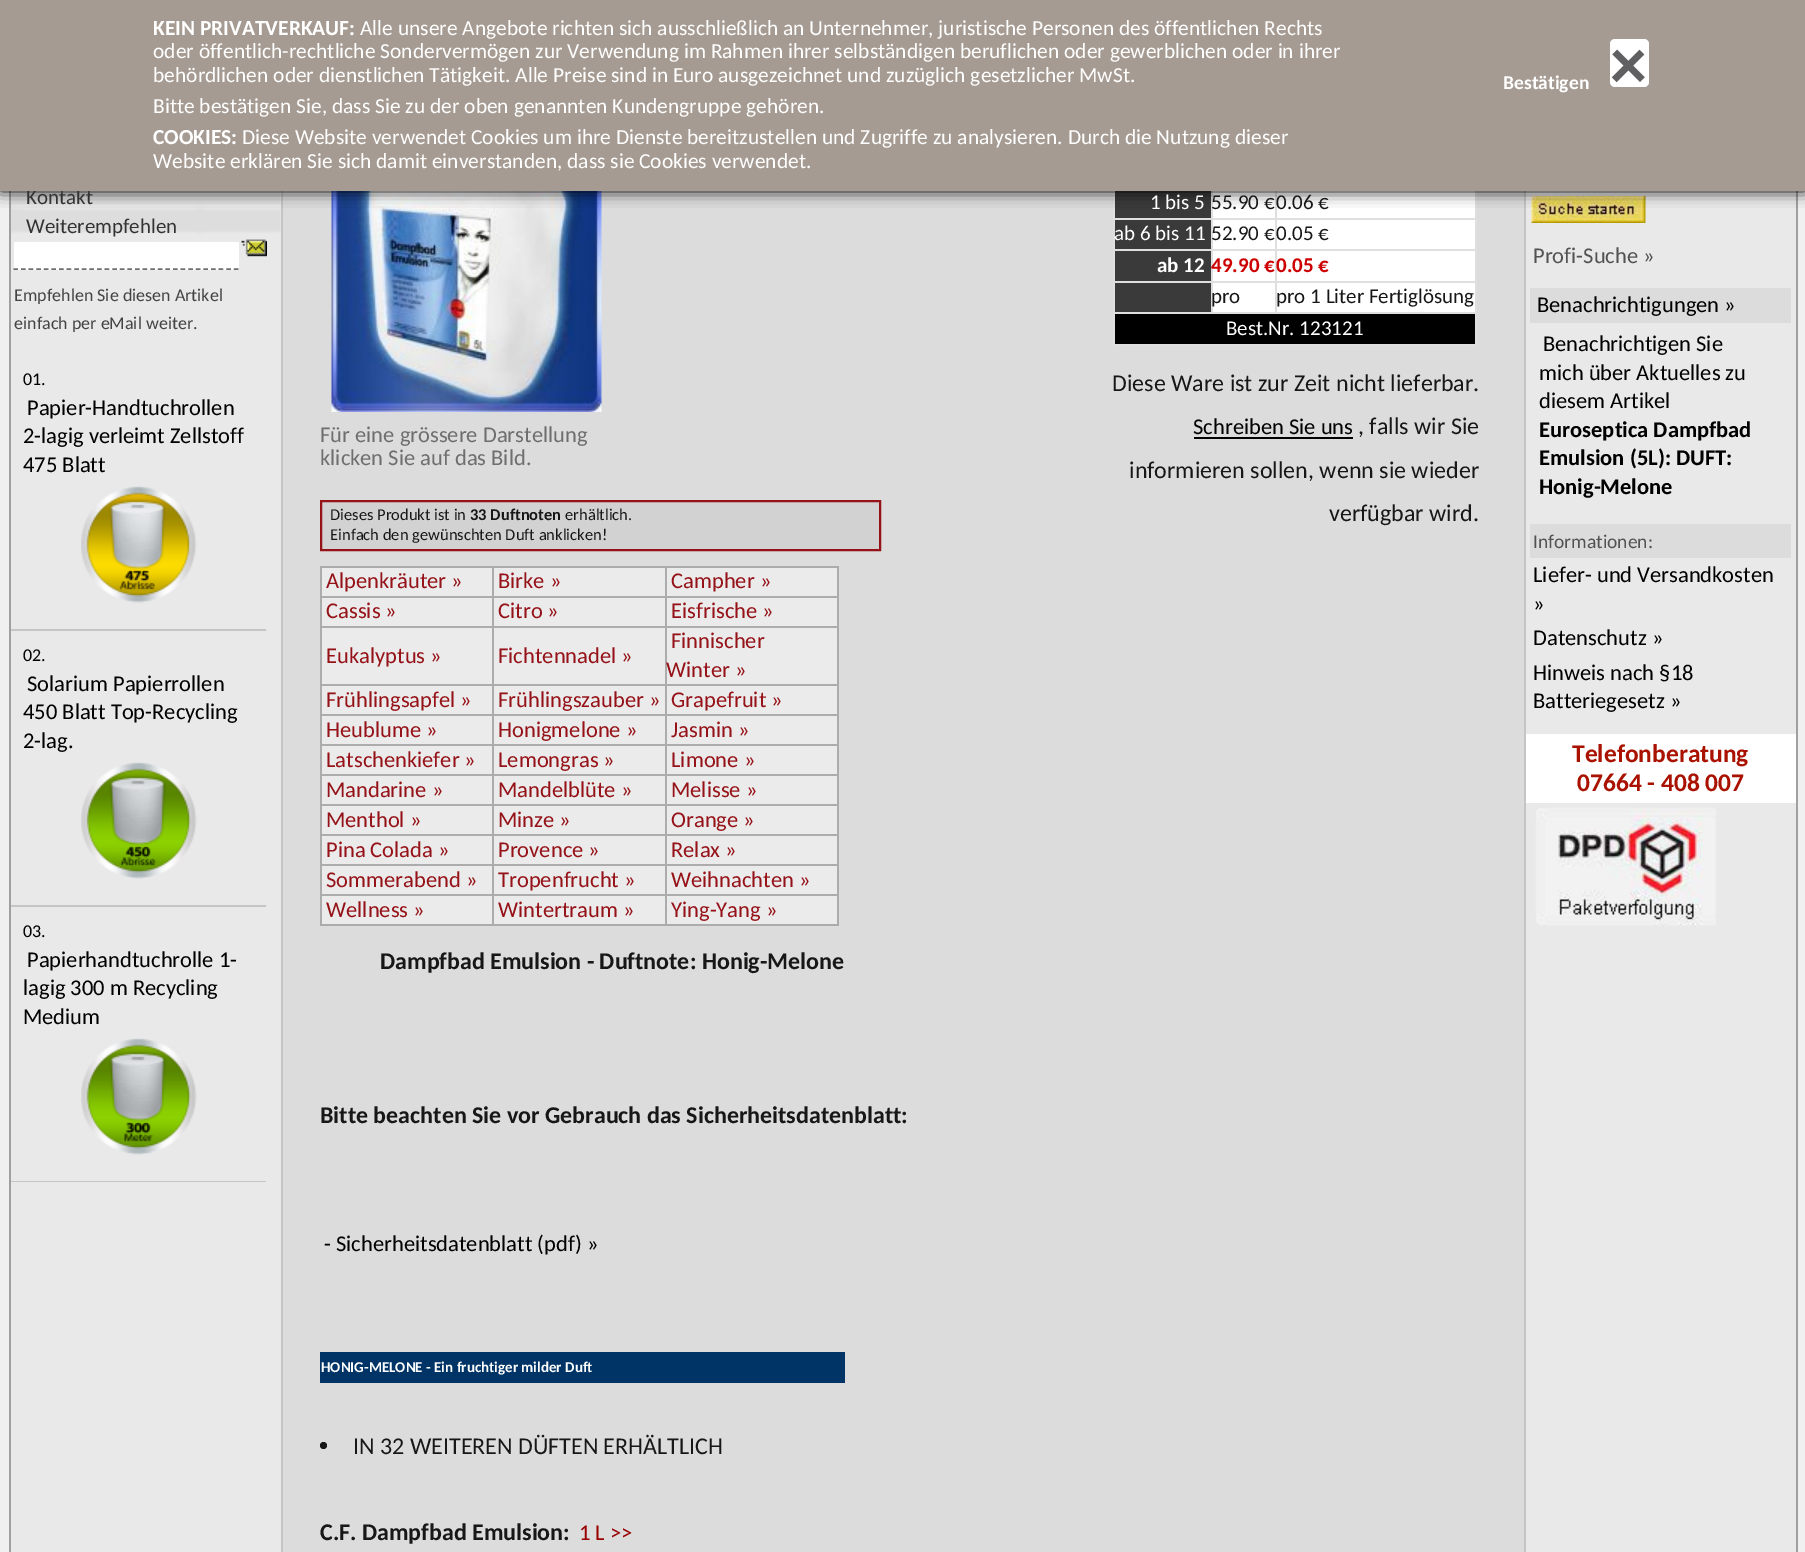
%!PS-Adobe-3.0
%%BoundingBox: 0 0 1805 1552
%%LanguageLevel: 3
%%Pages: 1
%%EndComments
%%BeginProlog
/m { moveto } bind def
/l { lineto } bind def
/h { closepath } bind def
/f { fill } bind def
/S { stroke } bind def
/q { gsave } bind def
/Q { grestore } bind def
/w { setlinewidth } bind def
/fn { [ exch dup neg 0 0 3 -1 roll 0 0 ] selectfont } def
/tx { moveto show } def
/bx { rectfill } def
/al { dup .setfillconstantalpha .setstrokeconstantalpha } def
/ci { newpath 0 360 arc closepath } def
/rr { 5 dict begin { /r /h /w /y /x } { exch def } forall
  x r add y moveto x w add y 2 copy h add r arct x w add y h add x 1 index r arct
  x y h add x y r arct x y 2 copy exch w add exch r arct closepath end } def
/sh { 12 dict begin { /a /b /q /h /w /y /x } { exch def } forall gsave /was 0 def
  9 -2 -9 { dup b mul 4 div /e exch def 1 sub .425 mul 2.718 exch exp 1 add a .99 .min exch div /now exch def
    1 1 now sub 1 was sub div sub al /was now def
    w h .min e 2 mul add 0 gt { x e sub y e sub w e 2 mul add h e 2 mul add
      q e add b .6 mul add w h .min 2 div e add .min 0 .max rr fill } if } for grestore end } def
/im { 5 dict begin { /h /w /y /x /name } { exch def } forall
  gsave x y translate w h scale
  w h 8 [w 0 0 h 0 0] name (r) file false 3 colorimage grestore end } def
%%EndProlog
%%BeginSetup
<< /PageSize [1805 1552] /PageUsesTransparency true >> setpagedevice
%%EndSetup
%%Page: 1 1
0 .pushpdf14devicefilter
0 1552 translate 1 -1 scale
4 setmiterlimit
0.941 setgray
0 0 1805 1552 bx
0.914 setgray
11 191 270 1361 bx
0.773 setgray
281 191 2 1361 bx
0.627 setgray
9 191 2 1361 bx
(image0.raw) 11 191 270 15 im
(image1.raw) 11 207 270 28 im
0.863 0.863 0.867 setrgbcolor
283 191 1241 1361 bx
0.227 setgray
1115 191 96 27 bx
1 setgray
1213 191 62 27 bx
0.875 setgray
1275 218 201 2 bx
1275 249 201 2 bx
1275 281 201 2 bx
1113 312 363 2 bx
1275 281 2 33 bx
1211 281 66 2 bx
1275 249 2 33 bx
1211 249 66 2 bx
1275 218 2 33 bx
1211 218 66 2 bx
1211 281 2 33 bx
1113 281 99 2 bx
1211 249 2 33 bx
1113 249 99 2 bx
1211 218 2 33 bx
1113 218 99 2 bx
1211 186 2 33 bx
1 setgray
1277 191 198 27 bx
0.875 setgray
1275 186 2 33 bx
1475 312 2 33 bx
1113 344 363 2 bx
1113 312 2 33 bx
1113 281 2 33 bx
1113 249 2 33 bx
1113 186 2 65 bx
1475 281 2 33 bx
1475 249 2 33 bx
1475 186 2 65 bx
(image6.raw) 331 191 271 221 im
0.914 setgray
1526 191 270 1361 bx
0.627 setgray
1796 191 2 1361 bx
0.773 setgray
1524 191 2 1361 bx
(image7.raw) 1531 196 115 27 im
0 setgray
0 -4 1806 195 0 7.5 1 sh
/Carlito-Regular 21 fn
0.2 setgray
(Kontakt) 26 204 tx
0.647 0.608 0.573 setrgbcolor
0 0 1805 191 bx
/Carlito-Bold 21.45 fn
1 setgray
(KEIN PRIVATVERKAUF:) 153 35 tx
/Carlito-Regular 21.45 fn
(Alle unsere Angebote richten sich ausschließlich an Unternehmer, juristische Personen des öffentlichen Rechts) 360 35 tx
(oder öffentlich-rechtliche Sondervermögen zur Verwendung im Rahmen ihrer selbständigen beruflichen oder gewerblichen oder in ihrer) 153 58 tx
(behördlichen oder dienstlichen Tätigkeit. Alle Preise sind in Euro ausgezeichnet und zuzüglich gesetzlicher MwSt.) 153 82 tx
(Bitte bestätigen Sie, dass Sie zu der oben genannten Kundengruppe gehören.) 153 113 tx
/Carlito-Bold 21.45 fn
(COOKIES:) 153 144 tx
/Carlito-Regular 21.45 fn
(Diese Website verwendet Cookies um ihre Dienste bereitzustellen und Zugriffe zu analysieren. Durch die Nutzung dieser) 242 144 tx
(Website erklären Sie sich damit einverstanden, dass sie Cookies verwendet.) 153 168 tx
/Carlito-Bold 19.5 fn
(Bestätigen) 1503 89 tx
1610 39 39 48 5 rr f
/Carlito-Bold 74 fn
0.376 0.373 0.38 setrgbcolor
(×) 1610 89 tx
/Carlito-Regular 21 fn
0.2 setgray
(Weiterempfehlen) 26 233 tx
1 setgray
14 242 225 28 bx
0.431 setgray
1.5 w
[4.5 3.1] 0 setdash
13.5 269 m 238.5 269 l S
(image2.raw) 241 239 26 18 im
/Carlito-Regular 18 fn
0.267 setgray
(Empfehlen Sie diesen Artikel) 14 301 tx
(einfach per eMail weiter.) 14 329 tx
0.773 setgray
11 629 255 2 bx
0 setgray
(01.) 23 385 tx
/Carlito-Regular 22.5 fn
(Papier-Handtuchrollen) 27 415 tx
(2-lagig verleimt Zellstoff) 23 443 tx
(475 Blatt) 23 472 tx
(image3.raw) 81 486 116 117 im
0.773 setgray
11 905 255 2 bx
/Carlito-Regular 18 fn
0 setgray
(02.) 23 661 tx
/Carlito-Regular 22.5 fn
(Solarium Papierrollen) 27 691 tx
(450 Blatt Top-Recycling) 23 719 tx
(2-lag.) 23 748 tx
(image4.raw) 81 762 116 117 im
0.773 setgray
11 1181 255 1 bx
/Carlito-Regular 18 fn
0 setgray
(03.) 23 937 tx
/Carlito-Regular 22.5 fn
(Papierhandtuchrolle 1-) 27 967 tx
(lagig 300 m Recycling) 23 995 tx
(Medium) 23 1024 tx
(image5.raw) 81 1038 116 117 im
/Carlito-Regular 21 fn
1 setgray
(1 bis 5) 1150 209 tx
0.09 setgray
(55.90 €) 1211 209 tx
(0.06 €) 1276 209 tx
0.227 setgray
1115 220 96 29 bx
1 setgray
(ab 6 bis 11) 1114 240 tx
1213 220 62 29 bx
0.09 setgray
(52.90 €) 1211 240 tx
1 setgray
1277 220 198 29 bx
0.09 setgray
(0.05 €) 1276 240 tx
0.227 setgray
1115 251 96 30 bx
/Carlito-Bold 21 fn
1 setgray
(ab 12) 1157 272 tx
1213 251 62 30 bx
0.8 0 0 setrgbcolor
(49.90 €) 1211 272 tx
1 setgray
1277 251 198 30 bx
0.8 0 0 setrgbcolor
(0.05 €) 1276 272 tx
0.227 setgray
1115 283 96 29 bx
1 setgray
1213 283 62 29 bx
/Carlito-Regular 21 fn
0.09 setgray
(pro) 1211 303 tx
1 setgray
1277 283 198 29 bx
0.09 setgray
(pro 1 Liter Fertiglösung) 1276 303 tx
0 setgray
1115 314 360 30 bx
1 setgray
(Best.Nr. 123121) 1226 335 tx
/Carlito-Regular 22.5 fn
0.431 setgray
(Für eine grössere Darstellung) 320 442 tx
(klicken Sie auf das Bild.) 320 465 tx
0.824 setgray
321 501 m 880 501 l 880 550 l 321 550 l h q f Q
0.584 0.071 0.094 setrgbcolor
2 w
[] 0 setdash
S
/Carlito-Regular 16.5 fn
0.09 setgray
(Dieses Produkt ist in) 330 520 tx
/Carlito-Bold 16.5 fn
(33 Duftnoten) 470 520 tx
/Carlito-Regular 16.5 fn
(erhältlich.) 565 520 tx
(Einfach den gewünschten Duft anklicken!) 330 540 tx
0.922 setgray
322 568 170 28 bx
0.675 setgray
665 566 174 2 bx
665 596 174 2 bx
665 626 174 2 bx
665 684 174 2 bx
665 714 174 2 bx
665 744 174 2 bx
665 774 174 2 bx
665 804 174 2 bx
665 834 174 2 bx
665 864 174 2 bx
665 894 174 2 bx
837 894 2 32 bx
665 924 174 2 bx
665 894 2 32 bx
492 894 174 2 bx
665 864 2 32 bx
492 864 174 2 bx
665 834 2 32 bx
492 834 174 2 bx
665 804 2 32 bx
492 804 174 2 bx
665 774 2 32 bx
492 774 174 2 bx
665 744 2 32 bx
492 744 174 2 bx
665 714 2 32 bx
492 714 174 2 bx
665 684 2 32 bx
492 684 174 2 bx
665 626 2 60 bx
492 626 174 2 bx
665 596 2 31 bx
492 596 174 2 bx
665 566 2 31 bx
492 566 174 2 bx
492 924 174 2 bx
492 894 2 32 bx
320 894 174 2 bx
492 864 2 32 bx
320 864 174 2 bx
492 834 2 32 bx
320 834 174 2 bx
492 804 2 32 bx
320 804 174 2 bx
492 774 2 32 bx
320 774 174 2 bx
492 744 2 32 bx
320 744 174 2 bx
492 714 2 32 bx
320 714 174 2 bx
492 684 2 32 bx
320 684 174 2 bx
492 626 2 60 bx
320 626 174 2 bx
492 596 2 31 bx
320 596 174 2 bx
492 566 2 31 bx
320 566 174 2 bx
320 924 174 2 bx
320 894 2 32 bx
320 864 2 32 bx
320 834 2 32 bx
320 804 2 32 bx
320 774 2 32 bx
320 744 2 32 bx
320 714 2 32 bx
320 684 2 32 bx
320 626 2 60 bx
320 596 2 31 bx
320 566 2 31 bx
/Carlito-Regular 22.5 fn
0.584 0.071 0.094 setrgbcolor
(Alpenkräuter ») 326 588 tx
0.922 setgray
494 568 171 28 bx
0.584 0.071 0.094 setrgbcolor
(Birke ») 498 588 tx
0.922 setgray
667 568 170 28 bx
0.675 setgray
837 864 2 32 bx
837 834 2 32 bx
837 804 2 32 bx
837 774 2 32 bx
837 744 2 32 bx
837 714 2 32 bx
837 684 2 32 bx
837 626 2 60 bx
837 596 2 31 bx
837 566 2 31 bx
0.584 0.071 0.094 setrgbcolor
(Campher ») 671 588 tx
0.922 setgray
322 598 170 28 bx
0.584 0.071 0.094 setrgbcolor
(Cassis ») 326 618 tx
0.922 setgray
494 598 171 28 bx
0.584 0.071 0.094 setrgbcolor
(Citro ») 498 618 tx
0.922 setgray
667 598 170 28 bx
0.584 0.071 0.094 setrgbcolor
(Eisfrische ») 671 618 tx
0.922 setgray
322 628 170 56 bx
0.584 0.071 0.094 setrgbcolor
(Eukalyptus ») 326 663 tx
0.922 setgray
494 628 171 56 bx
0.584 0.071 0.094 setrgbcolor
(Fichtennadel ») 498 663 tx
0.922 setgray
667 628 170 56 bx
0.584 0.071 0.094 setrgbcolor
(Finnischer) 671 648 tx
(Winter ») 666 677 tx
0.922 setgray
322 686 170 28 bx
0.584 0.071 0.094 setrgbcolor
(Frühlingsapfel ») 326 707 tx
0.922 setgray
494 686 171 28 bx
0.584 0.071 0.094 setrgbcolor
(Frühlingszauber ») 498 707 tx
0.922 setgray
667 686 170 28 bx
0.584 0.071 0.094 setrgbcolor
(Grapefruit ») 671 707 tx
0.922 setgray
322 716 170 28 bx
0.584 0.071 0.094 setrgbcolor
(Heublume ») 326 737 tx
0.922 setgray
494 716 171 28 bx
0.584 0.071 0.094 setrgbcolor
(Honigmelone ») 498 737 tx
0.922 setgray
667 716 170 28 bx
0.584 0.071 0.094 setrgbcolor
(Jasmin ») 671 737 tx
0.922 setgray
322 746 170 28 bx
0.584 0.071 0.094 setrgbcolor
(Latschenkiefer ») 326 767 tx
0.922 setgray
494 746 171 28 bx
0.584 0.071 0.094 setrgbcolor
(Lemongras ») 498 767 tx
0.922 setgray
667 746 170 28 bx
0.584 0.071 0.094 setrgbcolor
(Limone ») 671 767 tx
0.922 setgray
322 776 170 28 bx
0.584 0.071 0.094 setrgbcolor
(Mandarine ») 326 797 tx
0.922 setgray
494 776 171 28 bx
0.584 0.071 0.094 setrgbcolor
(Mandelblüte ») 498 797 tx
0.922 setgray
667 776 170 28 bx
0.584 0.071 0.094 setrgbcolor
(Melisse ») 671 797 tx
0.922 setgray
322 806 170 28 bx
0.584 0.071 0.094 setrgbcolor
(Menthol ») 326 827 tx
0.922 setgray
494 806 171 28 bx
0.584 0.071 0.094 setrgbcolor
(Minze ») 498 827 tx
0.922 setgray
667 806 170 28 bx
0.584 0.071 0.094 setrgbcolor
(Orange ») 671 827 tx
0.922 setgray
322 836 170 28 bx
0.584 0.071 0.094 setrgbcolor
(Pina Colada ») 326 857 tx
0.922 setgray
494 836 171 28 bx
0.584 0.071 0.094 setrgbcolor
(Provence ») 498 857 tx
0.922 setgray
667 836 170 28 bx
0.584 0.071 0.094 setrgbcolor
(Relax ») 671 857 tx
0.922 setgray
322 866 170 28 bx
0.584 0.071 0.094 setrgbcolor
(Sommerabend ») 326 887 tx
0.922 setgray
494 866 171 28 bx
0.584 0.071 0.094 setrgbcolor
(Tropenfrucht ») 498 887 tx
0.922 setgray
667 866 170 28 bx
0.584 0.071 0.094 setrgbcolor
(Weihnachten ») 671 887 tx
0.922 setgray
322 896 170 28 bx
0.584 0.071 0.094 setrgbcolor
(Wellness ») 326 917 tx
0.922 setgray
494 896 171 28 bx
0.584 0.071 0.094 setrgbcolor
(Wintertraum ») 498 917 tx
0.922 setgray
667 896 170 28 bx
0.584 0.071 0.094 setrgbcolor
(Ying-Yang ») 671 917 tx
/Carlito-Regular 24 fn
0.09 setgray
(Diese Ware ist zur Zeit nicht lieferbar.) 1112 391 tx
/Carlito-Regular 22.5 fn
0 setgray
(Schreiben Sie uns) 1193 434 tx
1194 437 159 2 bx
/Carlito-Regular 24 fn
0.09 setgray
(, falls wir Sie) 1358 434 tx
(informieren sollen, wenn sie wieder) 1129 478 tx
(verfügbar wird.) 1329 521 tx
/Carlito-Bold 24 fn
(Dampfbad Emulsion - Duftnote: Honig-Melone) 380 969 tx
(Bitte beachten Sie vor Gebrauch das Sicherheitsdatenblatt:) 320 1123 tx
/Carlito-Regular 22.5 fn
0 setgray
(- Sicherheitsdatenblatt \(pdf\) ») 324 1251 tx
0 0.2 0.4 setrgbcolor
320 1352 525 31 bx
/Carlito-Bold 15 fn
1 setgray
(HONIG-MELONE - Ein fruchtiger milder Duft) 321 1372 tx
0.09 setgray
323.5 1445.5 3.5 ci f
/Carlito-Regular 24 fn
(IN 32 WEITEREN DÜFTEN ERHÄLTLICH) 353 1454 tx
/Carlito-Bold 24 fn
(C.F. Dampfbad Emulsion:) 320 1540 tx
/Carlito-Regular 22.5 fn
0.6 0 0 setrgbcolor
(1 L >>) 579 1540 tx
0.322 setgray
(Profi-Suche ») 1533 263 tx
0.863 setgray
1530 288 261 35 bx
0 setgray
(Benachrichtigungen ») 1537 312 tx
(Benachrichtigen Sie) 1543 351 tx
(mich über Aktuelles zu) 1539 380 tx
(diesem Artikel) 1539 408 tx
/Carlito-Bold 22.5 fn
(Euroseptica Dampfbad) 1539 437 tx
(Emulsion \(5L\): DUFT:) 1539 465 tx
(Honig-Melone) 1539 494 tx
0.863 setgray
1530 524 261 34 bx
/Carlito-Regular 19.5 fn
0.322 setgray
(Informationen:) 1533 548 tx
/Carlito-Regular 22.5 fn
0 setgray
(Liefer- und Versandkosten) 1533 582 tx
(») 1533 611 tx
(Datenschutz ») 1533 645 tx
(Hinweis nach §18) 1533 680 tx
(Batteriegesetz ») 1533 708 tx
1 setgray
1526 734 270 69 bx
/Carlito-Bold 25.5 fn
0.663 0.071 0 setrgbcolor
(Telefonberatung) 1572 762 tx
(07664 - 408 007) 1577 791 tx
(image8.raw) 1535 806 181 121 im
.poppdf14devicefilter showpage
%%EOF
